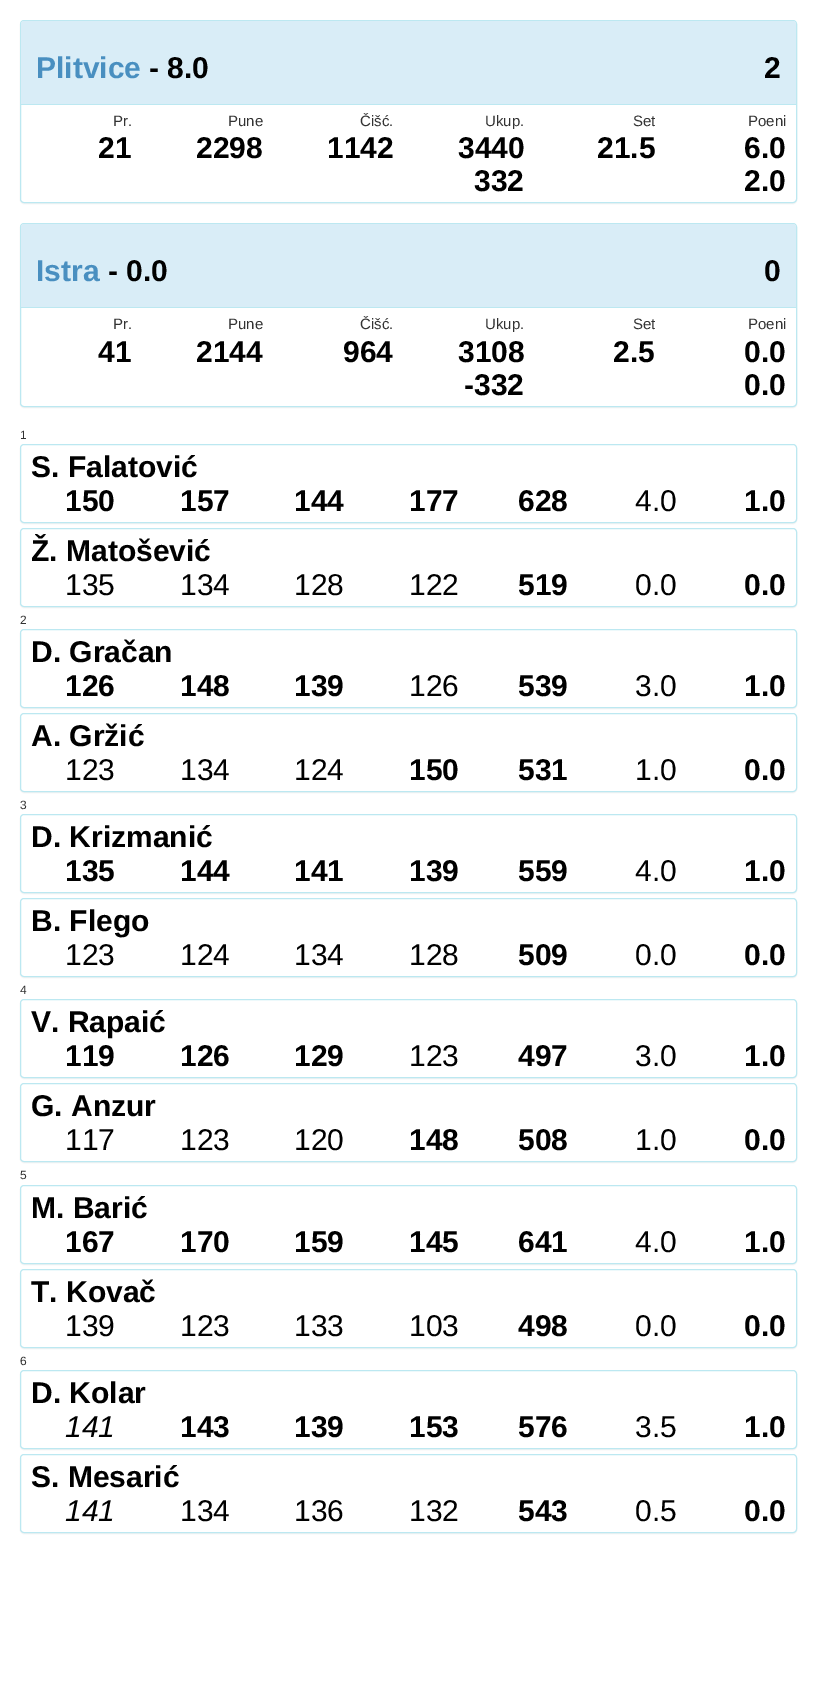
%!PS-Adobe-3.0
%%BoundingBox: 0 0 817 1703
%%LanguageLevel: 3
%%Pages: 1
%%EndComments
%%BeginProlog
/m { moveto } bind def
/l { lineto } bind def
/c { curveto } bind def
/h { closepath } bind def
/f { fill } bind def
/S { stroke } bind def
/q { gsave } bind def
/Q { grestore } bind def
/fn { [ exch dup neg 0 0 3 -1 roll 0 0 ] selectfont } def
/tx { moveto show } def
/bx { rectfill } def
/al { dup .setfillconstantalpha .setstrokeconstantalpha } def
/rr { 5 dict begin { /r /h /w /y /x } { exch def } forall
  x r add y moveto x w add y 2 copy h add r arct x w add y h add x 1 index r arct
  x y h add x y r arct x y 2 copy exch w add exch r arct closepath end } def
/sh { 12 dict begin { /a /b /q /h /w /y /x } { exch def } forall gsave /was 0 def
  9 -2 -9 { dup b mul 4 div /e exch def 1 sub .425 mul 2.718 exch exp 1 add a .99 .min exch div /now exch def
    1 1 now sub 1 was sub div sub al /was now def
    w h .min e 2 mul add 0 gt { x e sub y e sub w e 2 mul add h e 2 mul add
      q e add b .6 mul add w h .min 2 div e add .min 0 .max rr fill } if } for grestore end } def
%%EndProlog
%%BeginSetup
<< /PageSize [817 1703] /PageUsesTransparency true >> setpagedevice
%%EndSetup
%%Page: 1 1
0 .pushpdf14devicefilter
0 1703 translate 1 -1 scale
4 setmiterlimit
1 setgray
0 0 817 1703 bx
0 setgray
20 21 777 183 4 0.5 0.05 sh
1 setgray
20.5 20.5 776 182 3.5 rr q f Q
0.737 0.91 0.945 setrgbcolor
S
0.851 0.929 0.969 setrgbcolor
24 21 m 793 21 l 794.5 21 796 22.5 796 24 c 796 105 l 21 105 l 21 24 l 21 22.5 22.5 21 24 21 c h f
0.737 0.91 0.945 setrgbcolor
21 104 775 1 bx
/LiberationSans-Bold 30 fn
0.286 0.561 0.753 setrgbcolor
(Plitvice) 36 78 tx
0 setgray
(- 8.0) 149 78 tx
(2) 764 78 tx
/LiberationSans-Regular 15 fn
0.2 setgray
(Pr.) 113 126 tx
(Pune) 228 126 tx
(Čišć.) 360 126 tx
(Ukup.) 485 126 tx
(Set) 633 126 tx
(Poeni) 748 126 tx
/LiberationSans-Bold 30 fn
0 setgray
(21) 98 158 tx
(2298) 196 158 tx
(1142) 327 158 tx
(3440) 458 158 tx
(332) 474 191 tx
(21.5) 597 158 tx
(6.0) 744 158 tx
(2.0) 744 191 tx
20 224 777 184 4 0.5 0.05 sh
1 setgray
20.5 223.5 776 183 3.5 rr q f Q
0.737 0.91 0.945 setrgbcolor
S
0.851 0.929 0.969 setrgbcolor
24 224 m 793 224 l 794.5 224 796 225.5 796 227 c 796 308 l 21 308 l 21 227 l 21 225.5 22.5 224 24 224 c h f
0.737 0.91 0.945 setrgbcolor
21 307 775 1 bx
0.286 0.561 0.753 setrgbcolor
(Istra) 36 281 tx
0 setgray
(- 0.0) 108 281 tx
(0) 764 281 tx
/LiberationSans-Regular 15 fn
0.2 setgray
(Pr.) 113 329 tx
(Pune) 228 329 tx
(Čišć.) 360 329 tx
(Ukup.) 485 329 tx
(Set) 633 329 tx
(Poeni) 748 329 tx
/LiberationSans-Bold 30 fn
0 setgray
(41) 98 362 tx
(2144) 196 362 tx
(964) 343 362 tx
(3108) 458 362 tx
(-332) 464 395 tx
(2.5) 613 362 tx
(0.0) 744 362 tx
(0.0) 744 395 tx
/LiberationSans-Regular 12 fn
0.2 setgray
(1) 20 439 tx
0 setgray
20 445 777 79 4 0.5 0.05 sh
1 setgray
20.5 444.5 776 78 3.5 rr q f Q
0.737 0.91 0.945 setrgbcolor
S
/LiberationSans-Bold 30 fn
0 setgray
(S. Falatović) 31 477 tx
(150) 65 511 tx
(157) 180 511 tx
(144) 294 511 tx
(177) 409 511 tx
(628) 518 511 tx
/LiberationSans-Regular 30 fn
(4.0) 635 511 tx
/LiberationSans-Bold 30 fn
(1.0) 744 511 tx
20 529 777 79 4 0.5 0.05 sh
1 setgray
20.5 528.5 776 78 3.5 rr q f Q
0.737 0.91 0.945 setrgbcolor
S
0 setgray
(Ž. Matošević) 31 561 tx
/LiberationSans-Regular 30 fn
(135) 65 595 tx
(134) 180 595 tx
(128) 294 595 tx
(122) 409 595 tx
/LiberationSans-Bold 30 fn
(519) 518 595 tx
/LiberationSans-Regular 30 fn
(0.0) 635 595 tx
/LiberationSans-Bold 30 fn
(0.0) 744 595 tx
/LiberationSans-Regular 12 fn
0.2 setgray
(2) 20 624 tx
0 setgray
20 630 777 79 4 0.5 0.05 sh
1 setgray
20.5 629.5 776 78 3.5 rr q f Q
0.737 0.91 0.945 setrgbcolor
S
/LiberationSans-Bold 30 fn
0 setgray
(D. Gračan) 31 662 tx
(126) 65 696 tx
(148) 180 696 tx
(139) 294 696 tx
/LiberationSans-Regular 30 fn
(126) 409 696 tx
/LiberationSans-Bold 30 fn
(539) 518 696 tx
/LiberationSans-Regular 30 fn
(3.0) 635 696 tx
/LiberationSans-Bold 30 fn
(1.0) 744 696 tx
20 714 777 79 4 0.5 0.05 sh
1 setgray
20.5 713.5 776 78 3.5 rr q f Q
0.737 0.91 0.945 setrgbcolor
S
0 setgray
(A. Gržić) 31 746 tx
/LiberationSans-Regular 30 fn
(123) 65 780 tx
(134) 180 780 tx
(124) 294 780 tx
/LiberationSans-Bold 30 fn
(150) 409 780 tx
(531) 518 780 tx
/LiberationSans-Regular 30 fn
(1.0) 635 780 tx
/LiberationSans-Bold 30 fn
(0.0) 744 780 tx
/LiberationSans-Regular 12 fn
0.2 setgray
(3) 20 809 tx
0 setgray
20 815 777 79 4 0.5 0.05 sh
1 setgray
20.5 814.5 776 78 3.5 rr q f Q
0.737 0.91 0.945 setrgbcolor
S
/LiberationSans-Bold 30 fn
0 setgray
(D. Krizmanić) 31 847 tx
(135) 65 881 tx
(144) 180 881 tx
(141) 294 881 tx
(139) 409 881 tx
(559) 518 881 tx
/LiberationSans-Regular 30 fn
(4.0) 635 881 tx
/LiberationSans-Bold 30 fn
(1.0) 744 881 tx
20 899 777 79 4 0.5 0.05 sh
1 setgray
20.5 898.5 776 78 3.5 rr q f Q
0.737 0.91 0.945 setrgbcolor
S
0 setgray
(B. Flego) 31 931 tx
/LiberationSans-Regular 30 fn
(123) 65 965 tx
(124) 180 965 tx
(134) 294 965 tx
(128) 409 965 tx
/LiberationSans-Bold 30 fn
(509) 518 965 tx
/LiberationSans-Regular 30 fn
(0.0) 635 965 tx
/LiberationSans-Bold 30 fn
(0.0) 744 965 tx
/LiberationSans-Regular 12 fn
0.2 setgray
(4) 20 994 tx
0 setgray
20 1000 777 79 4 0.5 0.05 sh
1 setgray
20.5 999.5 776 78 3.5 rr q f Q
0.737 0.91 0.945 setrgbcolor
S
/LiberationSans-Bold 30 fn
0 setgray
(V. Rapaić) 31 1032 tx
(119) 65 1066 tx
(126) 180 1066 tx
(129) 294 1066 tx
/LiberationSans-Regular 30 fn
(123) 409 1066 tx
/LiberationSans-Bold 30 fn
(497) 518 1066 tx
/LiberationSans-Regular 30 fn
(3.0) 635 1066 tx
/LiberationSans-Bold 30 fn
(1.0) 744 1066 tx
20 1084 777 79 4 0.5 0.05 sh
1 setgray
20.5 1083.5 776 78 3.5 rr q f Q
0.737 0.91 0.945 setrgbcolor
S
0 setgray
(G. Anzur) 31 1116 tx
/LiberationSans-Regular 30 fn
(117) 65 1150 tx
(123) 180 1150 tx
(120) 294 1150 tx
/LiberationSans-Bold 30 fn
(148) 409 1150 tx
(508) 518 1150 tx
/LiberationSans-Regular 30 fn
(1.0) 635 1150 tx
/LiberationSans-Bold 30 fn
(0.0) 744 1150 tx
/LiberationSans-Regular 12 fn
0.2 setgray
(5) 20 1179 tx
0 setgray
20 1186 777 79 4 0.5 0.05 sh
1 setgray
20.5 1185.5 776 78 3.5 rr q f Q
0.737 0.91 0.945 setrgbcolor
S
/LiberationSans-Bold 30 fn
0 setgray
(M. Barić) 31 1218 tx
(167) 65 1252 tx
(170) 180 1252 tx
(159) 294 1252 tx
(145) 409 1252 tx
(641) 518 1252 tx
/LiberationSans-Regular 30 fn
(4.0) 635 1252 tx
/LiberationSans-Bold 30 fn
(1.0) 744 1252 tx
20 1270 777 79 4 0.5 0.05 sh
1 setgray
20.5 1269.5 776 78 3.5 rr q f Q
0.737 0.91 0.945 setrgbcolor
S
0 setgray
(T. Kovač) 31 1302 tx
/LiberationSans-Regular 30 fn
(139) 65 1336 tx
(123) 180 1336 tx
(133) 294 1336 tx
(103) 409 1336 tx
/LiberationSans-Bold 30 fn
(498) 518 1336 tx
/LiberationSans-Regular 30 fn
(0.0) 635 1336 tx
/LiberationSans-Bold 30 fn
(0.0) 744 1336 tx
/LiberationSans-Regular 12 fn
0.2 setgray
(6) 20 1365 tx
0 setgray
20 1371 777 79 4 0.5 0.05 sh
1 setgray
20.5 1370.5 776 78 3.5 rr q f Q
0.737 0.91 0.945 setrgbcolor
S
/LiberationSans-Bold 30 fn
0 setgray
(D. Kolar) 31 1403 tx
/LiberationSans-Italic 30 fn
(141) 65 1437 tx
/LiberationSans-Bold 30 fn
(143) 180 1437 tx
(139) 294 1437 tx
(153) 409 1437 tx
(576) 518 1437 tx
/LiberationSans-Regular 30 fn
(3.5) 635 1437 tx
/LiberationSans-Bold 30 fn
(1.0) 744 1437 tx
20 1455 777 79 4 0.5 0.05 sh
1 setgray
20.5 1454.5 776 78 3.5 rr q f Q
0.737 0.91 0.945 setrgbcolor
S
0 setgray
(S. Mesarić) 31 1487 tx
/LiberationSans-Italic 30 fn
(141) 65 1521 tx
/LiberationSans-Regular 30 fn
(134) 180 1521 tx
(136) 294 1521 tx
(132) 409 1521 tx
/LiberationSans-Bold 30 fn
(543) 518 1521 tx
/LiberationSans-Regular 30 fn
(0.5) 635 1521 tx
/LiberationSans-Bold 30 fn
(0.0) 744 1521 tx
.poppdf14devicefilter showpage
%%EOF
